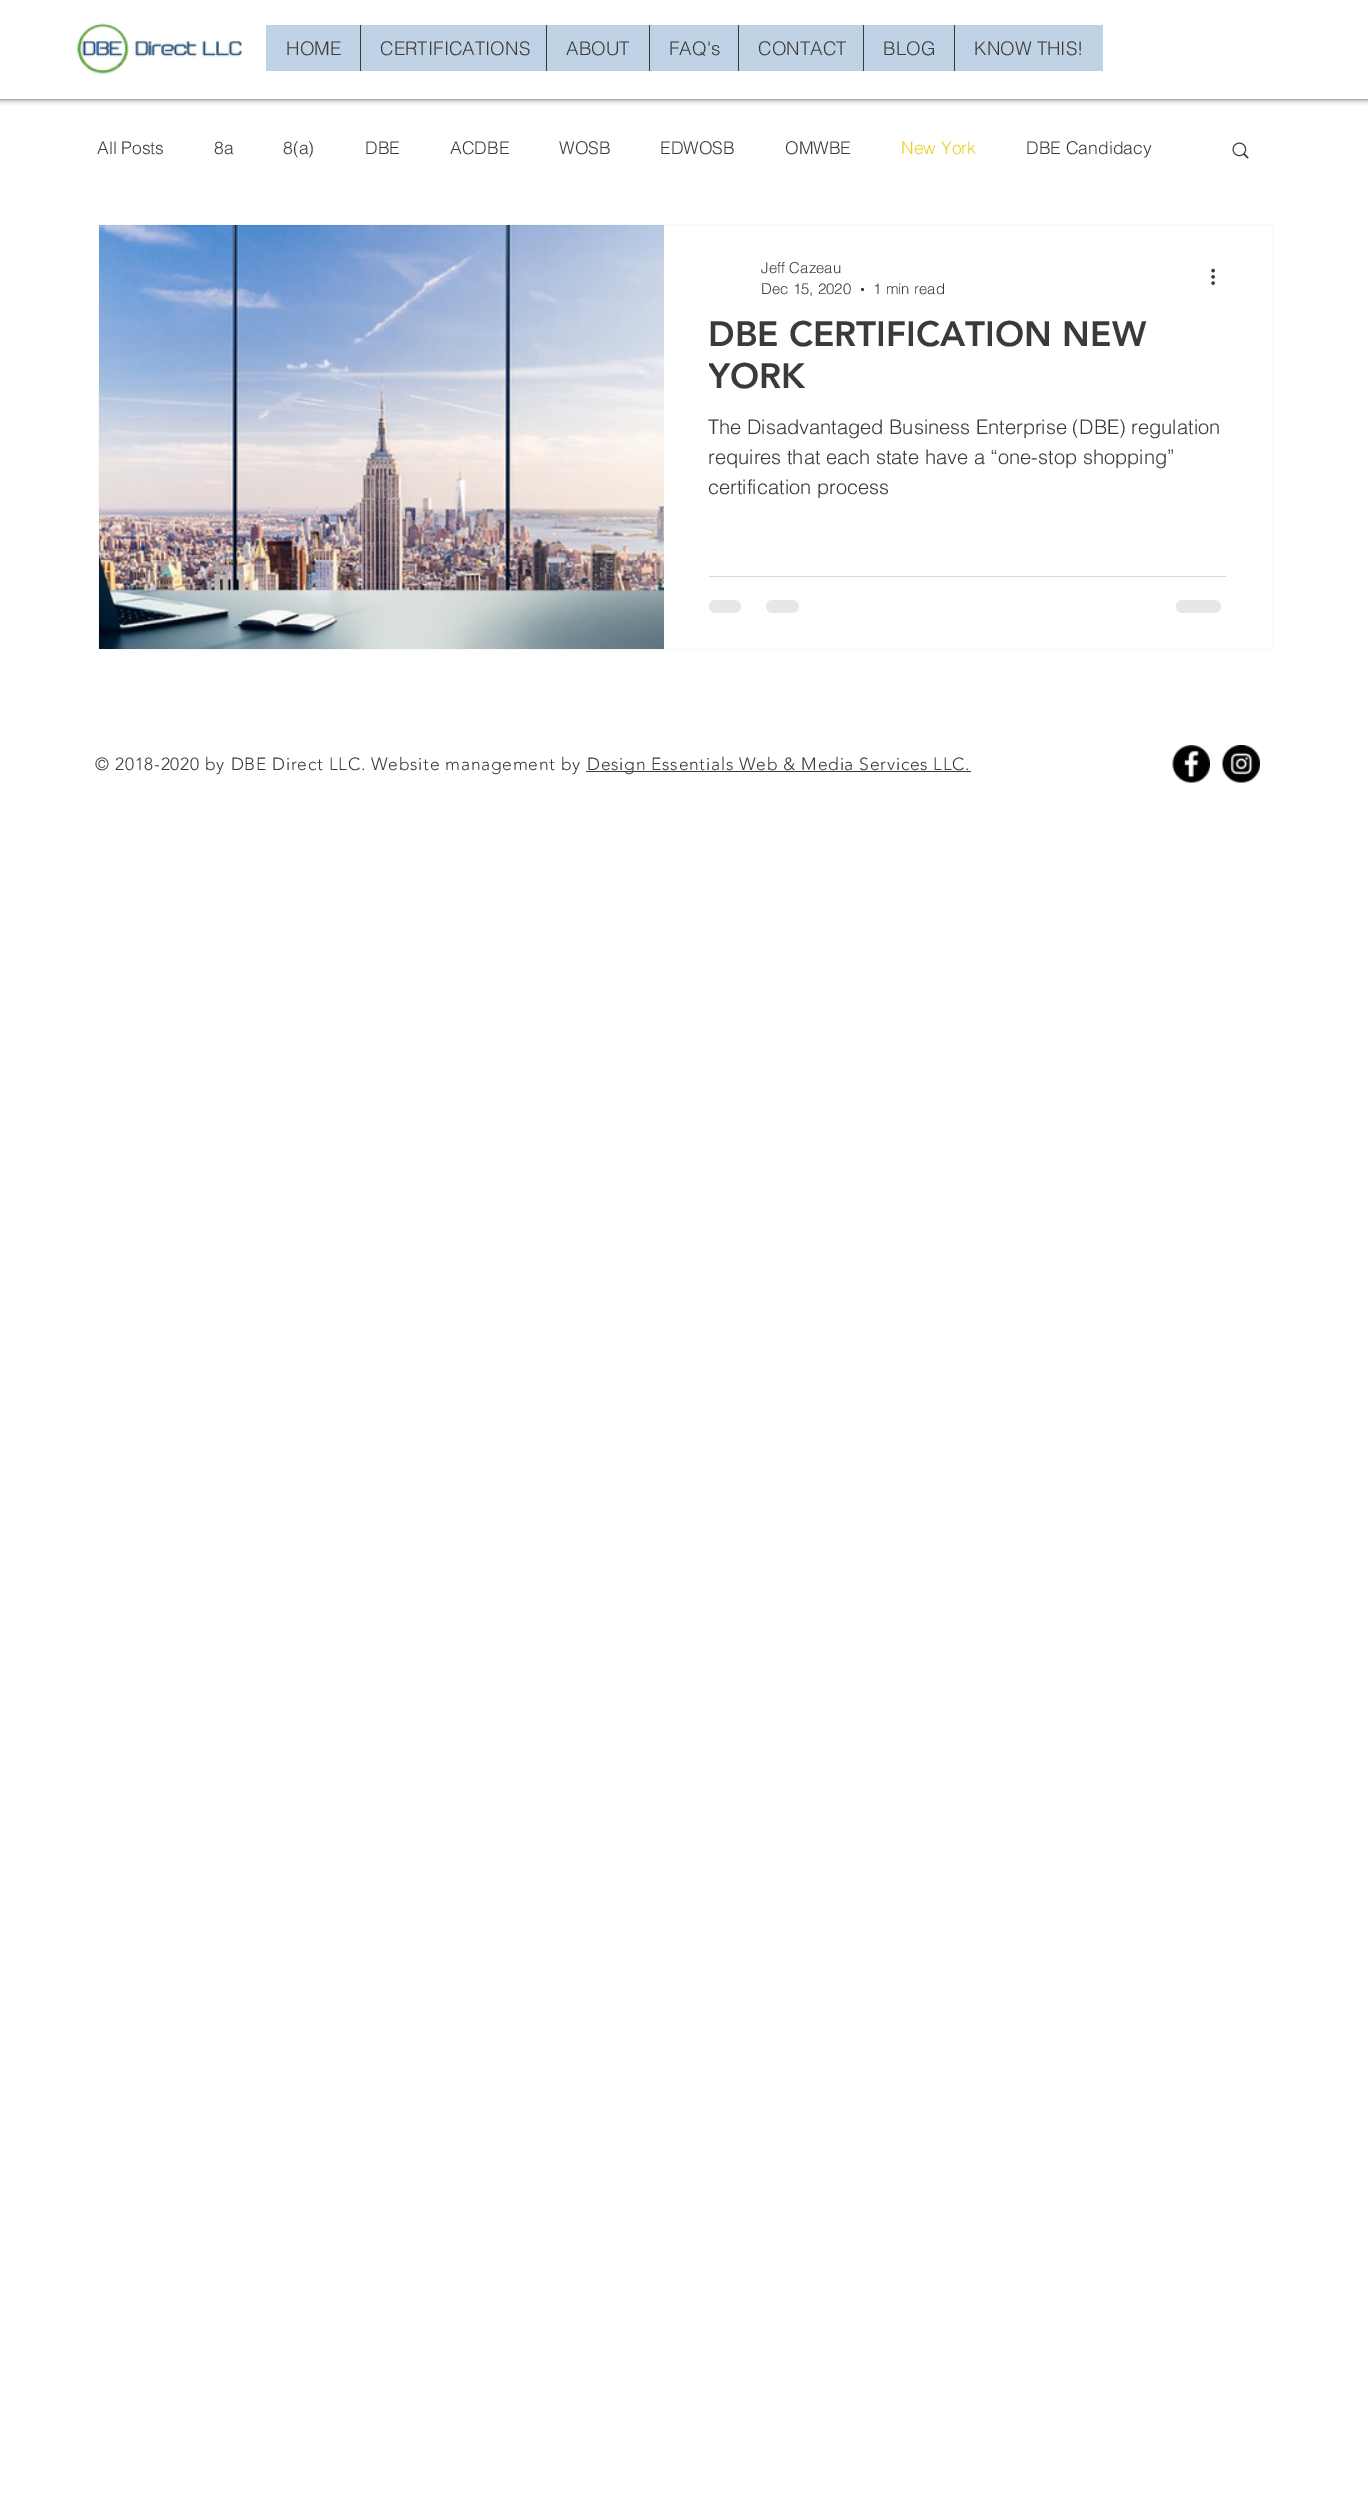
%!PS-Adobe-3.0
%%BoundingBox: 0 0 1368 2497
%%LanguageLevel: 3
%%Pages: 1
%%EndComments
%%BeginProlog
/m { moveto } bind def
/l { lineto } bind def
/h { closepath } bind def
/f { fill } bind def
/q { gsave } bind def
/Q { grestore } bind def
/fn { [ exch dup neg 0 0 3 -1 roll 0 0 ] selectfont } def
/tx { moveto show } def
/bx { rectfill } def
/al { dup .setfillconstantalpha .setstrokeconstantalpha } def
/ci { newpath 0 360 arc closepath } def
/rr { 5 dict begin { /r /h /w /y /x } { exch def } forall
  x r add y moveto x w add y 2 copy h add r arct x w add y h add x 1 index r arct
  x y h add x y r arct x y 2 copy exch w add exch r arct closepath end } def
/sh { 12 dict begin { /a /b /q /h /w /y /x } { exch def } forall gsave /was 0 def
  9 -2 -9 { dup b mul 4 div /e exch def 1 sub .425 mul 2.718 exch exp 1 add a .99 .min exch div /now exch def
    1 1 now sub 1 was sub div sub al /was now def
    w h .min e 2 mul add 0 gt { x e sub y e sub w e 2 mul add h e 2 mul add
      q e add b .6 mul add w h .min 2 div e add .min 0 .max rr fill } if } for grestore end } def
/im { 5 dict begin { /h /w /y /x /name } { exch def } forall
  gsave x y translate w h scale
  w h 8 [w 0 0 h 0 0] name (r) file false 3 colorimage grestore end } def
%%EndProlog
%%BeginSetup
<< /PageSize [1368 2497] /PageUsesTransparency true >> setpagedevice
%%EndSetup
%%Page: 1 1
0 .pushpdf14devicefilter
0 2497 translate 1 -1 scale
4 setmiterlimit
1 setgray
0 0 1368 2497 bx
q
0 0 m 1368 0 l 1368 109 l 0 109 l h 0 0 m 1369 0 l 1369 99 l 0 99 l h eoclip newpath
0 setgray
0 0 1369 99 0 3 0.7 sh
Q
0.6 al
0 98 1368 1 bx
1 al
(image0.raw) 77 23 166 51 im
0.753 0.824 0.898 setrgbcolor
266 25 837 46 bx
/helvetica-Light 18.75 fn
0.231 0.227 0.227 setrgbcolor
(HOME) 286 55 tx
360 25 1 46 bx
(CERTIFICATIONS) 380 55 tx
546 25 1 46 bx
(ABOUT) 566 55 tx
649 25 1 46 bx
(FAQ's) 669 55 tx
738 25 1 46 bx
(CONTACT) 758 55 tx
863 25 1 46 bx
(BLOG) 883 55 tx
954 25 1 46 bx
(KNOW THIS!) 974 55 tx
/helvetica-Light 17.5 fn
(All Posts) 97 154 tx
(8a) 214 154 tx
(8\(a\)) 283 154 tx
(DBE) 365 154 tx
(ACDBE) 450 154 tx
(WOSB) 559 154 tx
(EDWOSB) 660 154 tx
(OMWBE) 785 154 tx
0.929 0.804 0.122 setrgbcolor
(New York) 901 154 tx
0.231 0.227 0.227 setrgbcolor
(DBE Candidacy) 1026 154 tx
(image1.raw) 1232 142 17 17 im
0.976 setgray
98.5 224.5 1174 425 rectstroke
(image2.raw) 99 225 565 424 im
/helvetica-Light 15 fn
0.231 0.227 0.227 setrgbcolor
(Jeff Cazeau) 761 273 tx
(Dec 15, 2020) 761 294 tx
862.5 289.5 1.5 ci f
(1 min read) 873 294 tx
(image3.raw) 1211 268 4 17 im
/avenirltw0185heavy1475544-Black 35 fn
(DBE CERTIFICATION NEW) 708 346 tx
q
709 314 517 82 rectclip
(YORK) 708 388 tx
Q
/helvetica-Light 20 fn
(The Disadvantaged Business Enterprise \(DBE\) regulation) 708 434 tx
(requires that each state have a “one-stop shopping”) 708 464 tx
(certification process) 708 494 tx
0.847 setgray
709 576 517 1 bx
0.906 setgray
709 600 32 13 6.5 rr f
766 600 33 13 6.5 rr f
1176 600 45 13 6.5 rr f
/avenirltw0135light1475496-Light 17.5 fn
0.231 0.227 0.227 setrgbcolor
95 770 m 0.7 0 (© 2018-2020 by DBE Direct LLC. Website management by) ashow
586 771 385 1 bx
587 770 m 0.7 0 (Design Essentials Web & Media Services LLC.) ashow
(image4.raw) 1172 745 38 38 im
(image5.raw) 1222 745 38 38 im
.poppdf14devicefilter showpage
%%EOF
